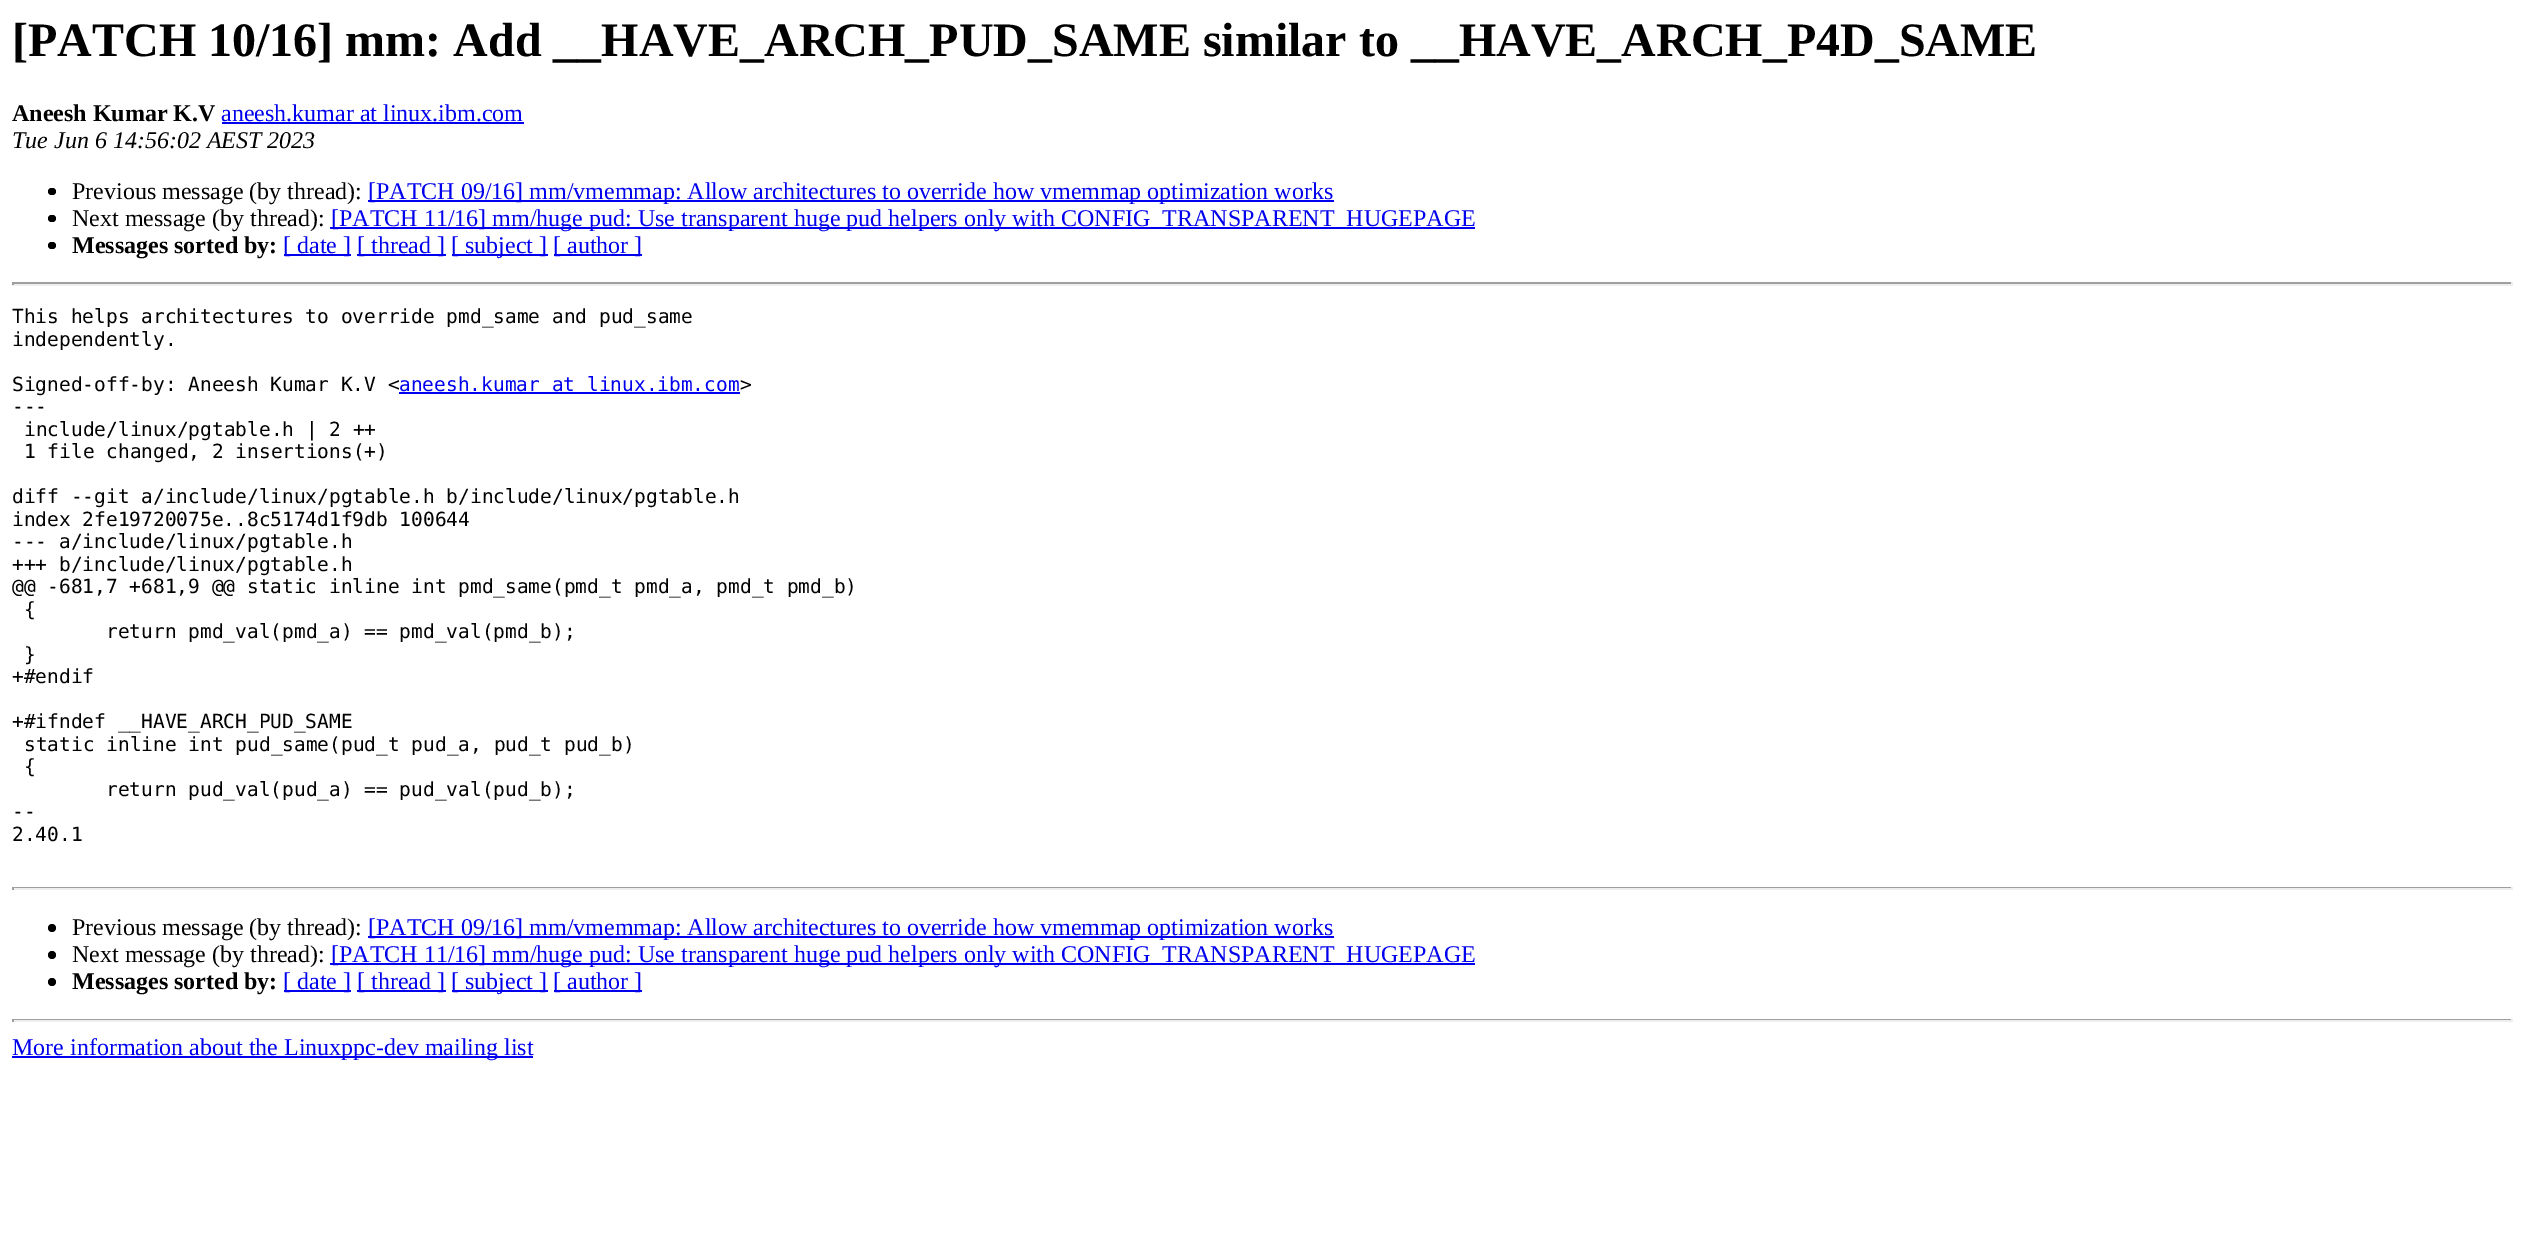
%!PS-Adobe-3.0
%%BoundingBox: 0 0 2524 1254
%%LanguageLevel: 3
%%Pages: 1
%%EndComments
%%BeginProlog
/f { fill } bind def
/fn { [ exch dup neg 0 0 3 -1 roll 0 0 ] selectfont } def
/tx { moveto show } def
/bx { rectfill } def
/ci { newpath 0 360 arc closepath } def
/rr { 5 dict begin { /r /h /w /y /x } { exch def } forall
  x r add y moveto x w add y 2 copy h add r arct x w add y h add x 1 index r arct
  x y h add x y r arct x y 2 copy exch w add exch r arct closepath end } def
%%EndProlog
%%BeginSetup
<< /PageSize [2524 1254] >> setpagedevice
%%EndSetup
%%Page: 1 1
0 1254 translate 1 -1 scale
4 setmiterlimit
1 setgray
0 0 2524 1254 bx
/LiberationSerif-Bold 48 fn
0 setgray
([PATCH 10/16] mm: Add __HAVE_ARCH_PUD_SAME similar to __HAVE_ARCH_P4D_SAME) 12 56 tx
/LiberationSerif-Bold 24 fn
(Aneesh Kumar K.V) 12 121 tx
/LiberationSerif-Regular 24 fn
0 0 0.933 setrgbcolor
(aneesh.kumar at linux.ibm.com) 221 121 tx
222 122 302 2 bx
/LiberationSerif-Italic 24 fn
0 setgray
(Tue Jun 6 14:56:02 AEST 2023) 12 148 tx
48 188 8 7 3.5 rr f
/LiberationSerif-Regular 24 fn
(Previous message \(by thread\):) 72 199 tx
0 0 0.933 setrgbcolor
368 200 966 2 bx
([PATCH 09/16] mm/vmemmap: Allow architectures to override how vmemmap optimization works) 368 199 tx
0 setgray
48 215 8 7 3.5 rr f
(Next message \(by thread\):) 72 226 tx
0 0 0.933 setrgbcolor
330 227 1145 2 bx
([PATCH 11/16] mm/huge pud: Use transparent huge pud helpers only with CONFIG_TRANSPARENT_HUGEPAGE) 331 226 tx
0 setgray
48 242 8 7 3.5 rr f
/LiberationSerif-Bold 24 fn
(Messages sorted by:) 72 253 tx
0 0 0.933 setrgbcolor
284 254 67 2 bx
/LiberationSerif-Regular 24 fn
([ date ]) 283 253 tx
357 254 89 2 bx
([ thread ]) 357 253 tx
452 254 96 2 bx
([ subject ]) 451 253 tx
554 254 88 2 bx
([ author ]) 553 253 tx
0.624 setgray
12 282 2501 2 bx
0.933 setgray
2511 282 2 3 bx
12 284 2501 2 bx
0.624 setgray
12 282 2 3 bx
/DejaVuSansMono-Regular 19.5 fn
0 setgray
(This helps architectures to override pmd_same and pud_same) 12 323 tx
(independently.) 12 346 tx
(Signed-off-by: Aneesh Kumar K.V <) 12 391 tx
0 0 0.933 setrgbcolor
(aneesh.kumar at linux.ibm.com) 399 391 tx
399 392 341 2 bx
0 setgray
(>) 740 391 tx
(---) 12 413 tx
(include/linux/pgtable.h | 2 ++) 24 436 tx
(1 file changed, 2 insertions\(+\)) 24 458 tx
(diff --git a/include/linux/pgtable.h b/include/linux/pgtable.h) 12 503 tx
(index 2fe19720075e..8c5174d1f9db 100644) 12 526 tx
(--- a/include/linux/pgtable.h) 12 548 tx
(+++ b/include/linux/pgtable.h) 12 571 tx
(@@ -681,7 +681,9 @@ static inline int pmd_same\(pmd_t pmd_a, pmd_t pmd_b\)) 12 593 tx
({) 24 616 tx
(return pmd_val\(pmd_a\) == pmd_val\(pmd_b\);) 106 638 tx
(}) 24 661 tx
(+#endif) 12 683 tx
(+#ifndef __HAVE_ARCH_PUD_SAME) 12 728 tx
(static inline int pud_same\(pud_t pud_a, pud_t pud_b\)) 24 751 tx
({) 24 773 tx
(return pud_val\(pud_a\) == pud_val\(pud_b\);) 106 796 tx
(--) 12 818 tx
(2.40.1) 12 841 tx
0.624 setgray
12 887 2501 1 bx
0.933 setgray
2511 887 2 3 bx
12 888 2501 2 bx
0.624 setgray
12 887 2 3 bx
0 setgray
52 928 4 ci f
/LiberationSerif-Regular 24 fn
(Previous message \(by thread\):) 72 935 tx
0 0 0.933 setrgbcolor
368 936 966 2 bx
([PATCH 09/16] mm/vmemmap: Allow architectures to override how vmemmap optimization works) 368 935 tx
0 setgray
52 955 4 ci f
(Next message \(by thread\):) 72 962 tx
0 0 0.933 setrgbcolor
330 963 1145 2 bx
([PATCH 11/16] mm/huge pud: Use transparent huge pud helpers only with CONFIG_TRANSPARENT_HUGEPAGE) 331 962 tx
0 setgray
52 982 4 ci f
/LiberationSerif-Bold 24 fn
(Messages sorted by:) 72 989 tx
0 0 0.933 setrgbcolor
284 990 67 2 bx
/LiberationSerif-Regular 24 fn
([ date ]) 283 989 tx
357 990 89 2 bx
([ thread ]) 357 989 tx
452 990 96 2 bx
([ subject ]) 451 989 tx
554 990 88 2 bx
([ author ]) 553 989 tx
0.624 setgray
12 1019 2501 1 bx
0.933 setgray
2511 1019 2 3 bx
12 1020 2501 2 bx
0.624 setgray
12 1019 2 3 bx
0 0 0.933 setrgbcolor
12 1056 521 2 bx
(More information about the Linuxppc-dev mailing list) 12 1055 tx
showpage
%%EOF
